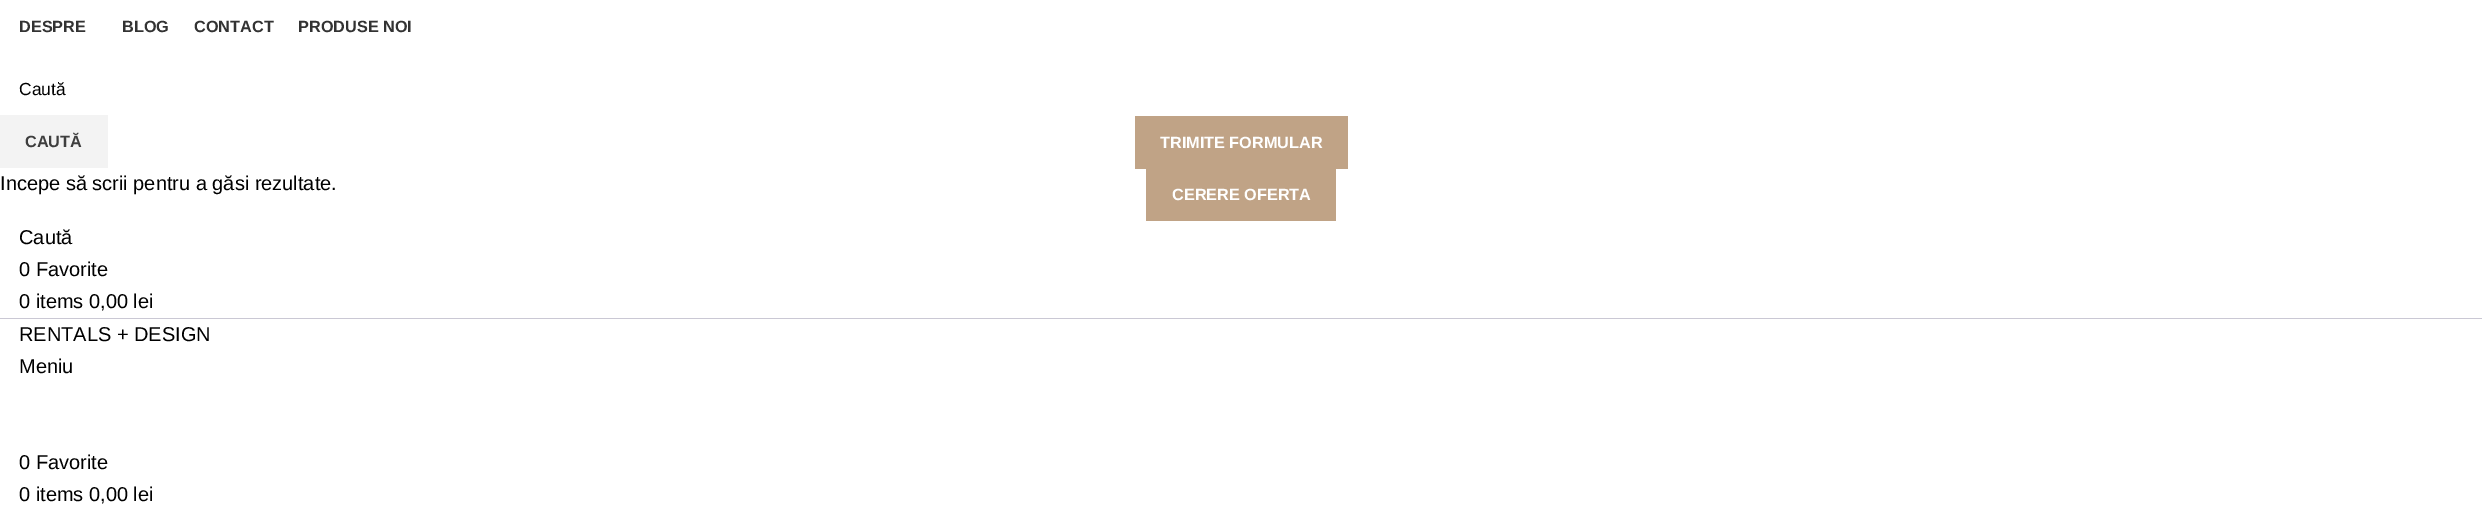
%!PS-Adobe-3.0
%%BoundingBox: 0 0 2482 531
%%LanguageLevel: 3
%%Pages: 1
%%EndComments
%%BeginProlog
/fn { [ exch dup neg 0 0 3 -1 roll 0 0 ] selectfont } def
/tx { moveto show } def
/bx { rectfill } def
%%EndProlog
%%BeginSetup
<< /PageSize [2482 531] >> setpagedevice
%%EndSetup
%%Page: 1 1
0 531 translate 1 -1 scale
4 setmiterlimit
1 setgray
0 0 2482 531 bx
0.792 0.784 0.831 setrgbcolor
0 318 2482 1 bx
/LiberationSans-Bold 16.25 fn
0.2 setgray
(DESPRE) 19 32 tx
(BLOG) 122 32 tx
(CONTACT) 194 32 tx
(PRODUSE NOI) 298 32 tx
0.753 0.639 0.525 setrgbcolor
1135 116 213 53 bx
1 setgray
(TRIMITE FORMULAR) 1160 148 tx
0.753 0.639 0.525 setrgbcolor
1146 169 190 52 bx
1 setgray
(CERERE OFERTA) 1172 200 tx
/LiberationSans-Regular 20 fn
0 setgray
(Caută) 19 244 tx
(0 Favorite) 19 276 tx
(0 items 0,00 lei) 19 308 tx
(RENTALS + DESIGN) 19 341 tx
(Meniu) 19 373 tx
(0 Favorite) 19 469 tx
(0 items 0,00 lei) 19 501 tx
/LiberationSans-Regular 17.5 fn
(Caută) 19 95 tx
0.953 setgray
0 115 108 53 bx
/LiberationSans-Bold 16.25 fn
0.243 setgray
(CAUTĂ) 25 147 tx
/LiberationSans-Regular 20 fn
0 setgray
(Incepe să scrii pentru a găsi rezultate.) 0 190 tx
showpage
%%EOF
